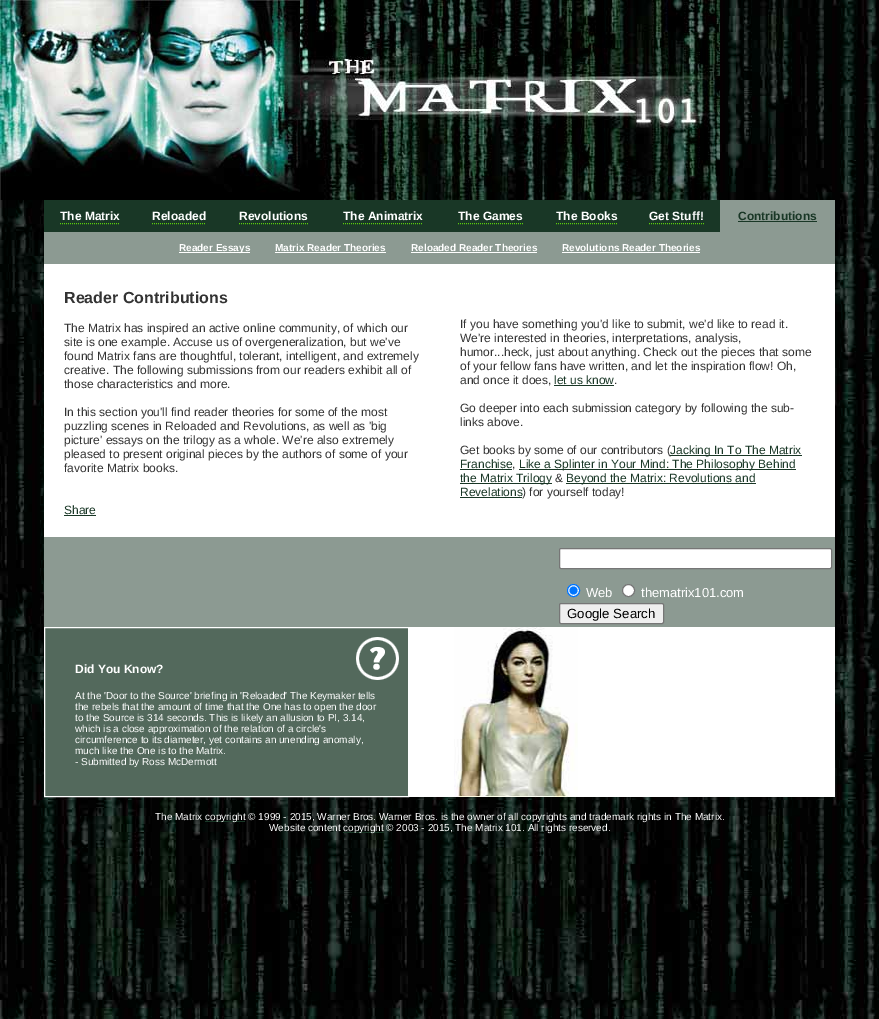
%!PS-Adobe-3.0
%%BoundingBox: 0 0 879 1019
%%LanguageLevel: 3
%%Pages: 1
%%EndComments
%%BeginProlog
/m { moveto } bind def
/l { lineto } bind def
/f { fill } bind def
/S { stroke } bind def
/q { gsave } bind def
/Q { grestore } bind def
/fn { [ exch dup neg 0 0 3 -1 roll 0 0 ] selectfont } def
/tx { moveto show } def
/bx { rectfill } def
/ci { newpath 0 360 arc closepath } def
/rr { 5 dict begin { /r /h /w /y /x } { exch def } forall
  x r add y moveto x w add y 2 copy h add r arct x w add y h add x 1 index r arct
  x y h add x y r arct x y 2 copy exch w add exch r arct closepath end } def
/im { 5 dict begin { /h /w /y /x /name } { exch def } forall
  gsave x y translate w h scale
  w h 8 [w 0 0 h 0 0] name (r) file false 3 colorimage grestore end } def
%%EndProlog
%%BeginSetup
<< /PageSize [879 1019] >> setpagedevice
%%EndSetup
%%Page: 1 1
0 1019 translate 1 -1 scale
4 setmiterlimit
1 setgray
0 0 879 1019 bx
(image0.raw) 0 0 879 1019 im
(image1.raw) 0 0 300 200 im
(image2.raw) 300 0 420 200 im
0.098 0.216 0.149 setrgbcolor
44 200 676 32 bx
/LiberationSans-Bold 12 fn
1 setgray
(The Matrix) 60 220 tx
0.357 0.816 0.047 setrgbcolor
[1 1] 0 setdash
60 223.5 m 120 223.5 l S
1 setgray
(Reloaded) 152 220 tx
0.357 0.816 0.047 setrgbcolor
152 223.5 m 206 223.5 l S
1 setgray
(Revolutions) 239 220 tx
0.357 0.816 0.047 setrgbcolor
239 223.5 m 308 223.5 l S
1 setgray
(The Animatrix) 343 220 tx
0.357 0.816 0.047 setrgbcolor
343 223.5 m 423 223.5 l S
1 setgray
(The Games) 458 220 tx
0.357 0.816 0.047 setrgbcolor
458 223.5 m 523 223.5 l S
1 setgray
(The Books) 556 220 tx
0.357 0.816 0.047 setrgbcolor
556 223.5 m 617 223.5 l S
1 setgray
(Get Stuff!) 649 220 tx
0.357 0.816 0.047 setrgbcolor
649 223.5 m 704 223.5 l S
0.549 0.604 0.573 setrgbcolor
720 200 115 32 bx
0.098 0.216 0.149 setrgbcolor
(Contributions) 738 220 tx
738 221 79 1 bx
0.549 0.604 0.573 setrgbcolor
44 232 791 32 bx
1 setgray
179 252 71 1 bx
/LiberationSans-Bold 10 fn
(Reader Essays) 179 251 tx
(Matrix Reader Theories) 275 251 tx
275 252 111 1 bx
(Reloaded Reader Theories) 411 251 tx
411 252 126 1 bx
(Revolutions Reader Theories) 562 251 tx
562 252 138 1 bx
44 264 791 273 bx
/LiberationSans-Bold 16 fn
0.2 setgray
(Reader Contributions) 64 303 tx
/LiberationSans-Regular 12 fn
(The Matrix has inspired an active online community, of which our) 64 332 tx
(site is one example. Accuse us of overgeneralization, but we've) 64 346 tx
(found Matrix fans are thoughtful, tolerant, intelligent, and extremely) 64 360 tx
(creative. The following submissions from our readers exhibit all of) 64 374 tx
(those characteristics and more.) 64 388 tx
(In this section you'll find reader theories for some of the most) 64 416 tx
(puzzling scenes in Reloaded and Revolutions, as well as 'big) 64 430 tx
(picture' essays on the trilogy as a whole. We're also extremely) 64 444 tx
(pleased to present original pieces by the authors of some of your) 64 458 tx
(favorite Matrix books.) 64 472 tx
0.098 0.216 0.149 setrgbcolor
(Share) 64 514 tx
64 515 32 1 bx
0.2 setgray
(If you have something you'd like to submit, we'd like to read it.) 460 328 tx
(We're interested in theories, interpretations, analysis,) 460 342 tx
(humor...heck, just about anything. Check out the pieces that some) 460 356 tx
(of your fellow fans have written, and let the inspiration flow! Oh,) 460 370 tx
(and once it does,) 460 384 tx
0.098 0.216 0.149 setrgbcolor
(let us know) 554 384 tx
554 385 60 1 bx
0.2 setgray
(.) 614 384 tx
(Go deeper into each submission category by following the sub-) 460 412 tx
(links above.) 460 426 tx
(Get books by some of our contributors \() 460 454 tx
0.098 0.216 0.149 setrgbcolor
670 455 132 1 bx
(Jacking In To The Matrix) 670 454 tx
(Franchise) 460 468 tx
460 469 52 1 bx
0.2 setgray
(,) 512 468 tx
0.098 0.216 0.149 setrgbcolor
519 469 277 1 bx
(Like a Splinter in Your Mind: The Philosophy Behind) 519 468 tx
460 483 92 1 bx
(the Matrix Trilogy) 460 482 tx
0.2 setgray
(&) 555 482 tx
0.098 0.216 0.149 setrgbcolor
566 483 190 1 bx
(Beyond the Matrix: Revolutions and) 566 482 tx
(Revelations) 460 496 tx
460 497 62 1 bx
0.2 setgray
(\) for yourself today!) 522 496 tx
0.549 0.604 0.573 setrgbcolor
44 537 791 2 bx
44 539 791 88 bx
1 setgray
559.5 548.5 272 20 1.5 rr q f Q
0.463 setgray
[] 0 setdash
S
1 setgray
573.5 590.5 6 ci q f Q
0 0.459 1 setrgbcolor
S
573.5 590.5 4 ci f
/LiberationSans-Regular 13 fn
1 setgray
(Web) 586 597 tx
628.5 590.5 6 ci q f Q
0.463 setgray
S
1 setgray
(thematrix101.com) 641 597 tx
0.937 setgray
559.5 603.5 104 20 1.5 rr q f Q
0.463 setgray
S
/LiberationSans-Regular 13.25 fn
0 setgray
(Google Search) 567 618 tx
0.325 0.412 0.361 setrgbcolor
45 628 363 168 bx
(image3.raw) 356 637 43 43 im
1 setgray
44.5 627.5 364 169 rectstroke
/LiberationSans-Bold 12 fn
(Did You Know?) 75 673 tx
/LiberationSans-Regular 10 fn
(At the 'Door to the Source' briefing in 'Reloaded' The Keymaker tells) 75 699 tx
(the rebels that the amount of time that the One has to open the door) 75 710 tx
(to the Source is 314 seconds. This is likely an allusion to PI, 3.14,) 75 721 tx
(which is a close approximation of the relation of a circle's) 75 732 tx
(circumference to its diameter, yet contains an unending anomaly,) 75 743 tx
(much like the One is to the Matrix.) 75 754 tx
(- Submitted by Ross McDermott) 75 765 tx
409 627 426 170 bx
(image4.raw) 454 627 124 170 im
(The Matrix) 155 820 tx
0.098 0.216 0.149 setrgbcolor
205 821 40 1 bx
1 setgray
(copyright © 1999 - 2015, Warner Bros. Warner Bros. is the owner of all copyrights and trademark rights in The Matrix.) 205 820 tx
(Website content) 269 831 tx
0.098 0.216 0.149 setrgbcolor
343 832 41 1 bx
1 setgray
(copyright © 2003 - 2015, The Matrix 101. All rights reserved.) 343 831 tx
showpage
%%EOF
